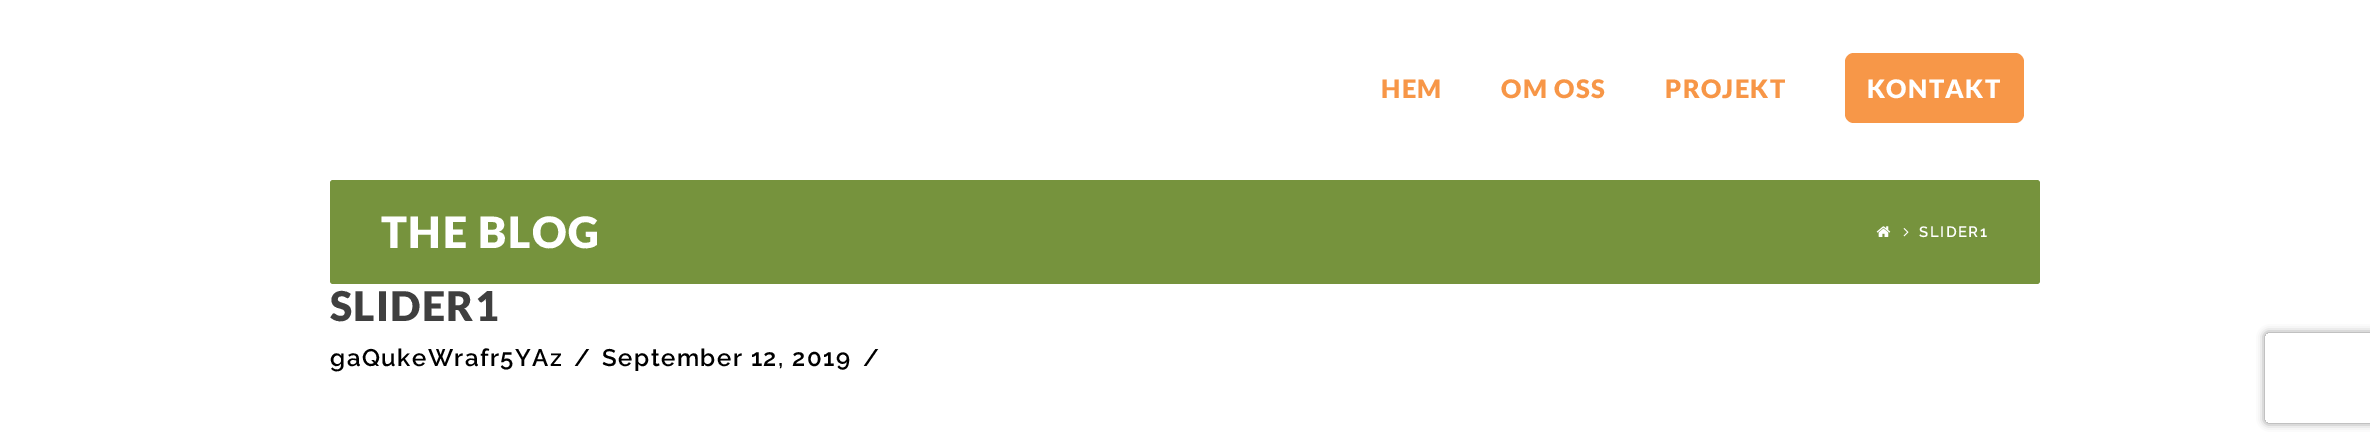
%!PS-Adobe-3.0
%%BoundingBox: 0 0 2370 443
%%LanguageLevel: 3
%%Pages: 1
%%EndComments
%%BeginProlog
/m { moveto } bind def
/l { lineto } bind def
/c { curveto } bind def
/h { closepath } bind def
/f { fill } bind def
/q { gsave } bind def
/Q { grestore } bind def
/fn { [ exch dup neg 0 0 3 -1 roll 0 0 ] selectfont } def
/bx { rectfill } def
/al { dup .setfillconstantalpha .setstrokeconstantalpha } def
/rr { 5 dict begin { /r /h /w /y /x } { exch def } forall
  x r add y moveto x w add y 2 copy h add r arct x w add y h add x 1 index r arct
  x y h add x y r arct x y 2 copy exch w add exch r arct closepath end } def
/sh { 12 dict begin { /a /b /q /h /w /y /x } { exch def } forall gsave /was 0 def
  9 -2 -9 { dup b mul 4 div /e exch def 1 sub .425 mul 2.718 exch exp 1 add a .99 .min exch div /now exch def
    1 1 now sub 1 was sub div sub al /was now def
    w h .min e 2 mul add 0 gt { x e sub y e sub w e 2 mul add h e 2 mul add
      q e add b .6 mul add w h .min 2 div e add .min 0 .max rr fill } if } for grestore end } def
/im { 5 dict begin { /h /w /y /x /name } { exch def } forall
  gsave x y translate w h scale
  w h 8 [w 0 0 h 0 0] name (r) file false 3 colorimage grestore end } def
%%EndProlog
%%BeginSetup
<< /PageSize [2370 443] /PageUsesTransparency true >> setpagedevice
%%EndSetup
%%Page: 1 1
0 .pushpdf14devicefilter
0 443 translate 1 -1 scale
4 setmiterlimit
1 setgray
0 0 2370 443 bx
/Lato-Black 25.5 fn
0.969 0.588 0.278 setrgbcolor
1381 98 m 1.25 0 (HEM) ashow
1501 98 m 1.25 0 (OM OSS) ashow
1665 98 m 1.25 0 (PROJEKT) ashow
0.969 0.592 0.282 setrgbcolor
1845 53 179 70 9 rr f
1 setgray
1867 98 m 1.25 0 (KONTAKT) ashow
0.463 0.576 0.239 setrgbcolor
330 180 1710 104 3 rr f
/Lato-Black 43.25 fn
1 setgray
381 248 m 1.5 0 (THE BLOG) ashow
(image0.raw) 1876 226 15 11 im
(image1.raw) 1903 228 6 9 im
/Raleway-SemiBold 15 fn
1919 237 m 1.5 0 (SLIDER1) ashow
/Lato-Black 41 fn
0.247 setgray
330 321 m 1.25 0 (SLIDER1) ashow
/Raleway-SemiBold 24 fn
0 setgray
330 366 m 1.5 0 (gaQukeWrafr5YAz) ashow
574 366 m 1.5 0 (/) ashow
602 366 m 1.5 0 (September 12, 2019) ashow
863 366 m 1.5 0 (/) ashow
q
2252 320 m 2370 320 l 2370 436 l 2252 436 l h 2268 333 m 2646 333 l 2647.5 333 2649 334.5 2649 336 c 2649 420 l 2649 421.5 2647.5 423 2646 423 c 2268 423 l 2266.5 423 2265 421.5 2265 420 c 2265 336 l 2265 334.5 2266.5 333 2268 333 c h eoclip newpath
0.502 setgray
2265 333 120 90 3 4 1 sh
Q
.poppdf14devicefilter showpage
%%EOF
